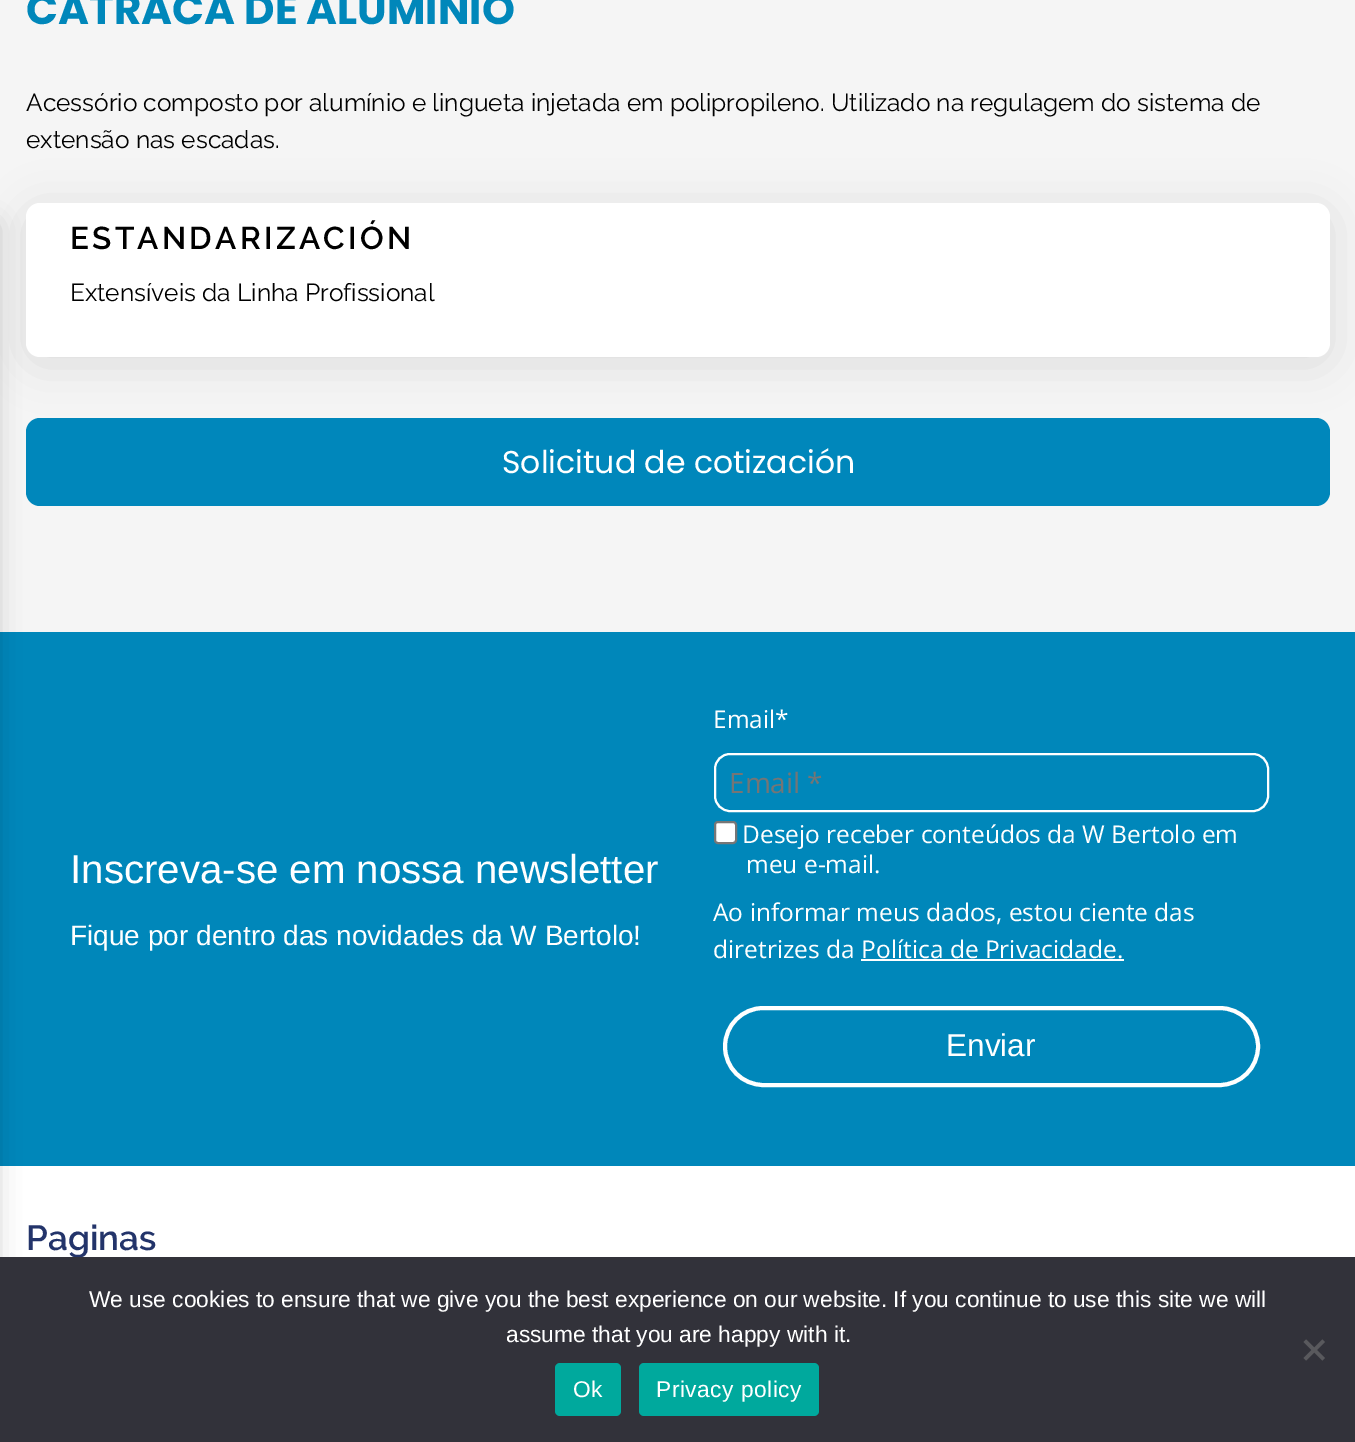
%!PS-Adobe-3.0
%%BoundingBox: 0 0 1355 1442
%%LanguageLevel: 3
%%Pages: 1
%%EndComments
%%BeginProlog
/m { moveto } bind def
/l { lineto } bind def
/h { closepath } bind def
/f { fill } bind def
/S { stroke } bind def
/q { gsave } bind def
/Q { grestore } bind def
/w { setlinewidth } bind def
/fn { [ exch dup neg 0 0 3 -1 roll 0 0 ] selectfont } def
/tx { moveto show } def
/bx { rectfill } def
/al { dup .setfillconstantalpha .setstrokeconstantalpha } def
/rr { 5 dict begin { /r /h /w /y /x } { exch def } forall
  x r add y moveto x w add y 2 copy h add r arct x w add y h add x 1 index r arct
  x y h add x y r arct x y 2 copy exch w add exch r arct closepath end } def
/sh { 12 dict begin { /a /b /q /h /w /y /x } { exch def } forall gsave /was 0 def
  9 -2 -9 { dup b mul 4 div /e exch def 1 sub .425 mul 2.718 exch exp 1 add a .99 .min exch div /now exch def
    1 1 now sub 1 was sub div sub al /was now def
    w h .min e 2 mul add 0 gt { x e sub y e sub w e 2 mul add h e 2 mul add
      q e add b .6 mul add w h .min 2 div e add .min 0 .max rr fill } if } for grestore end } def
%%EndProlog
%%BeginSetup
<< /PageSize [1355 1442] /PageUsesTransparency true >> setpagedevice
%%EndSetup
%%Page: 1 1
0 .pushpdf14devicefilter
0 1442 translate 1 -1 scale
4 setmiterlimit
0.961 setgray
0 0 1355 1442 bx
0 setgray
26 210 1304 154 14 23 0.1 sh
1 setgray
26 203 1304 154 14 rr f
0 0.529 0.733 setrgbcolor
26 418 1304 88 14 rr f
0 0.529 0.729 setrgbcolor
0 632 1355 534 bx
1 setgray
0 1166 1355 91 bx
0 setgray
-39 226 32 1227 0 13 0.25 sh
/Poppins-Bold 42 fn
0 0.529 0.729 setrgbcolor
(CATRACA DE ALUMÍNIO) 26 24 tx
/Raleway-Thin 24.5 fn
0 setgray
(Acessório composto por alumínio e lingueta injetada em polipropileno. Utilizado na regulagem do sistema de) 26 111 tx
(extensão nas escadas.) 26 148 tx
/Raleway-SemiBold 31.5 fn
70 249 m 3.25 0 (ESTANDARIZACIÓN) ashow
/Raleway-Thin 24.5 fn
(Extensíveis da Linha Profissional) 70 301 tx
/Poppins-Regular 31.5 fn
1 setgray
(Solicitud de cotización) 502 473 tx
/LiberationSans-Regular 40.25 fn
(Inscreva-se em nossa newsletter) 70 883 tx
/LiberationSans-Regular 28 fn
(Fique por dentro das novidades da W Bertolo!) 70 945 tx
/OpenSans-Regular 24.5 fn
(Email*) 713 728 tx
2 w
715 754 553 57 15 rr S
/OpenSans-Regular 28 fn
0.459 setgray
(Email *) 729 793 tx
1 setgray
715 822 21 21 3 rr q f Q
0.463 setgray
S
/OpenSans-Regular 24.5 fn
1 setgray
(Desejo receber conteúdos da W Bertolo em) 742 843 tx
(meu e-mail.) 746 873 tx
(Ao informar meus dados, estou ciente das) 713 921 tx
(diretrizes da Política de Privacidade.) 713 958 tx
861 959 263 2 bx
4 w
725 1008 533 77 38.5 rr S
/LiberationSans-Regular 31.5 fn
(Enviar) 946 1056 tx
/Raleway-SemiBold 35 fn
0.137 0.204 0.416 setrgbcolor
(Paginas) 26 1250 tx
0.196 0.196 0.227 setrgbcolor
0 1257 1355 185 bx
/LiberationSans-Regular 22.75 fn
1 setgray
(We use cookies to ensure that we give you the best experience on our website. If you continue to use this site we will) 89 1307 tx
(assume that you are happy with it.) 506 1342 tx
0.349 0.349 0.365 setrgbcolor
1322.5 1339.5 m 1325 1342 l 1306 1360.5 l 1303.5 1358 l h f
1303.5 1342 m 1306 1339.5 l 1325 1358 l 1322.5 1360.5 l h f
0 0.663 0.616 setrgbcolor
555 1363 66 53 5 rr f
1 setgray
573 1397 m 0.5 0 (Ok) ashow
0 0.663 0.616 setrgbcolor
639 1363 180 53 5 rr f
1 setgray
656 1397 m 0.5 0 (Privacy policy) ashow
.poppdf14devicefilter showpage
%%EOF
